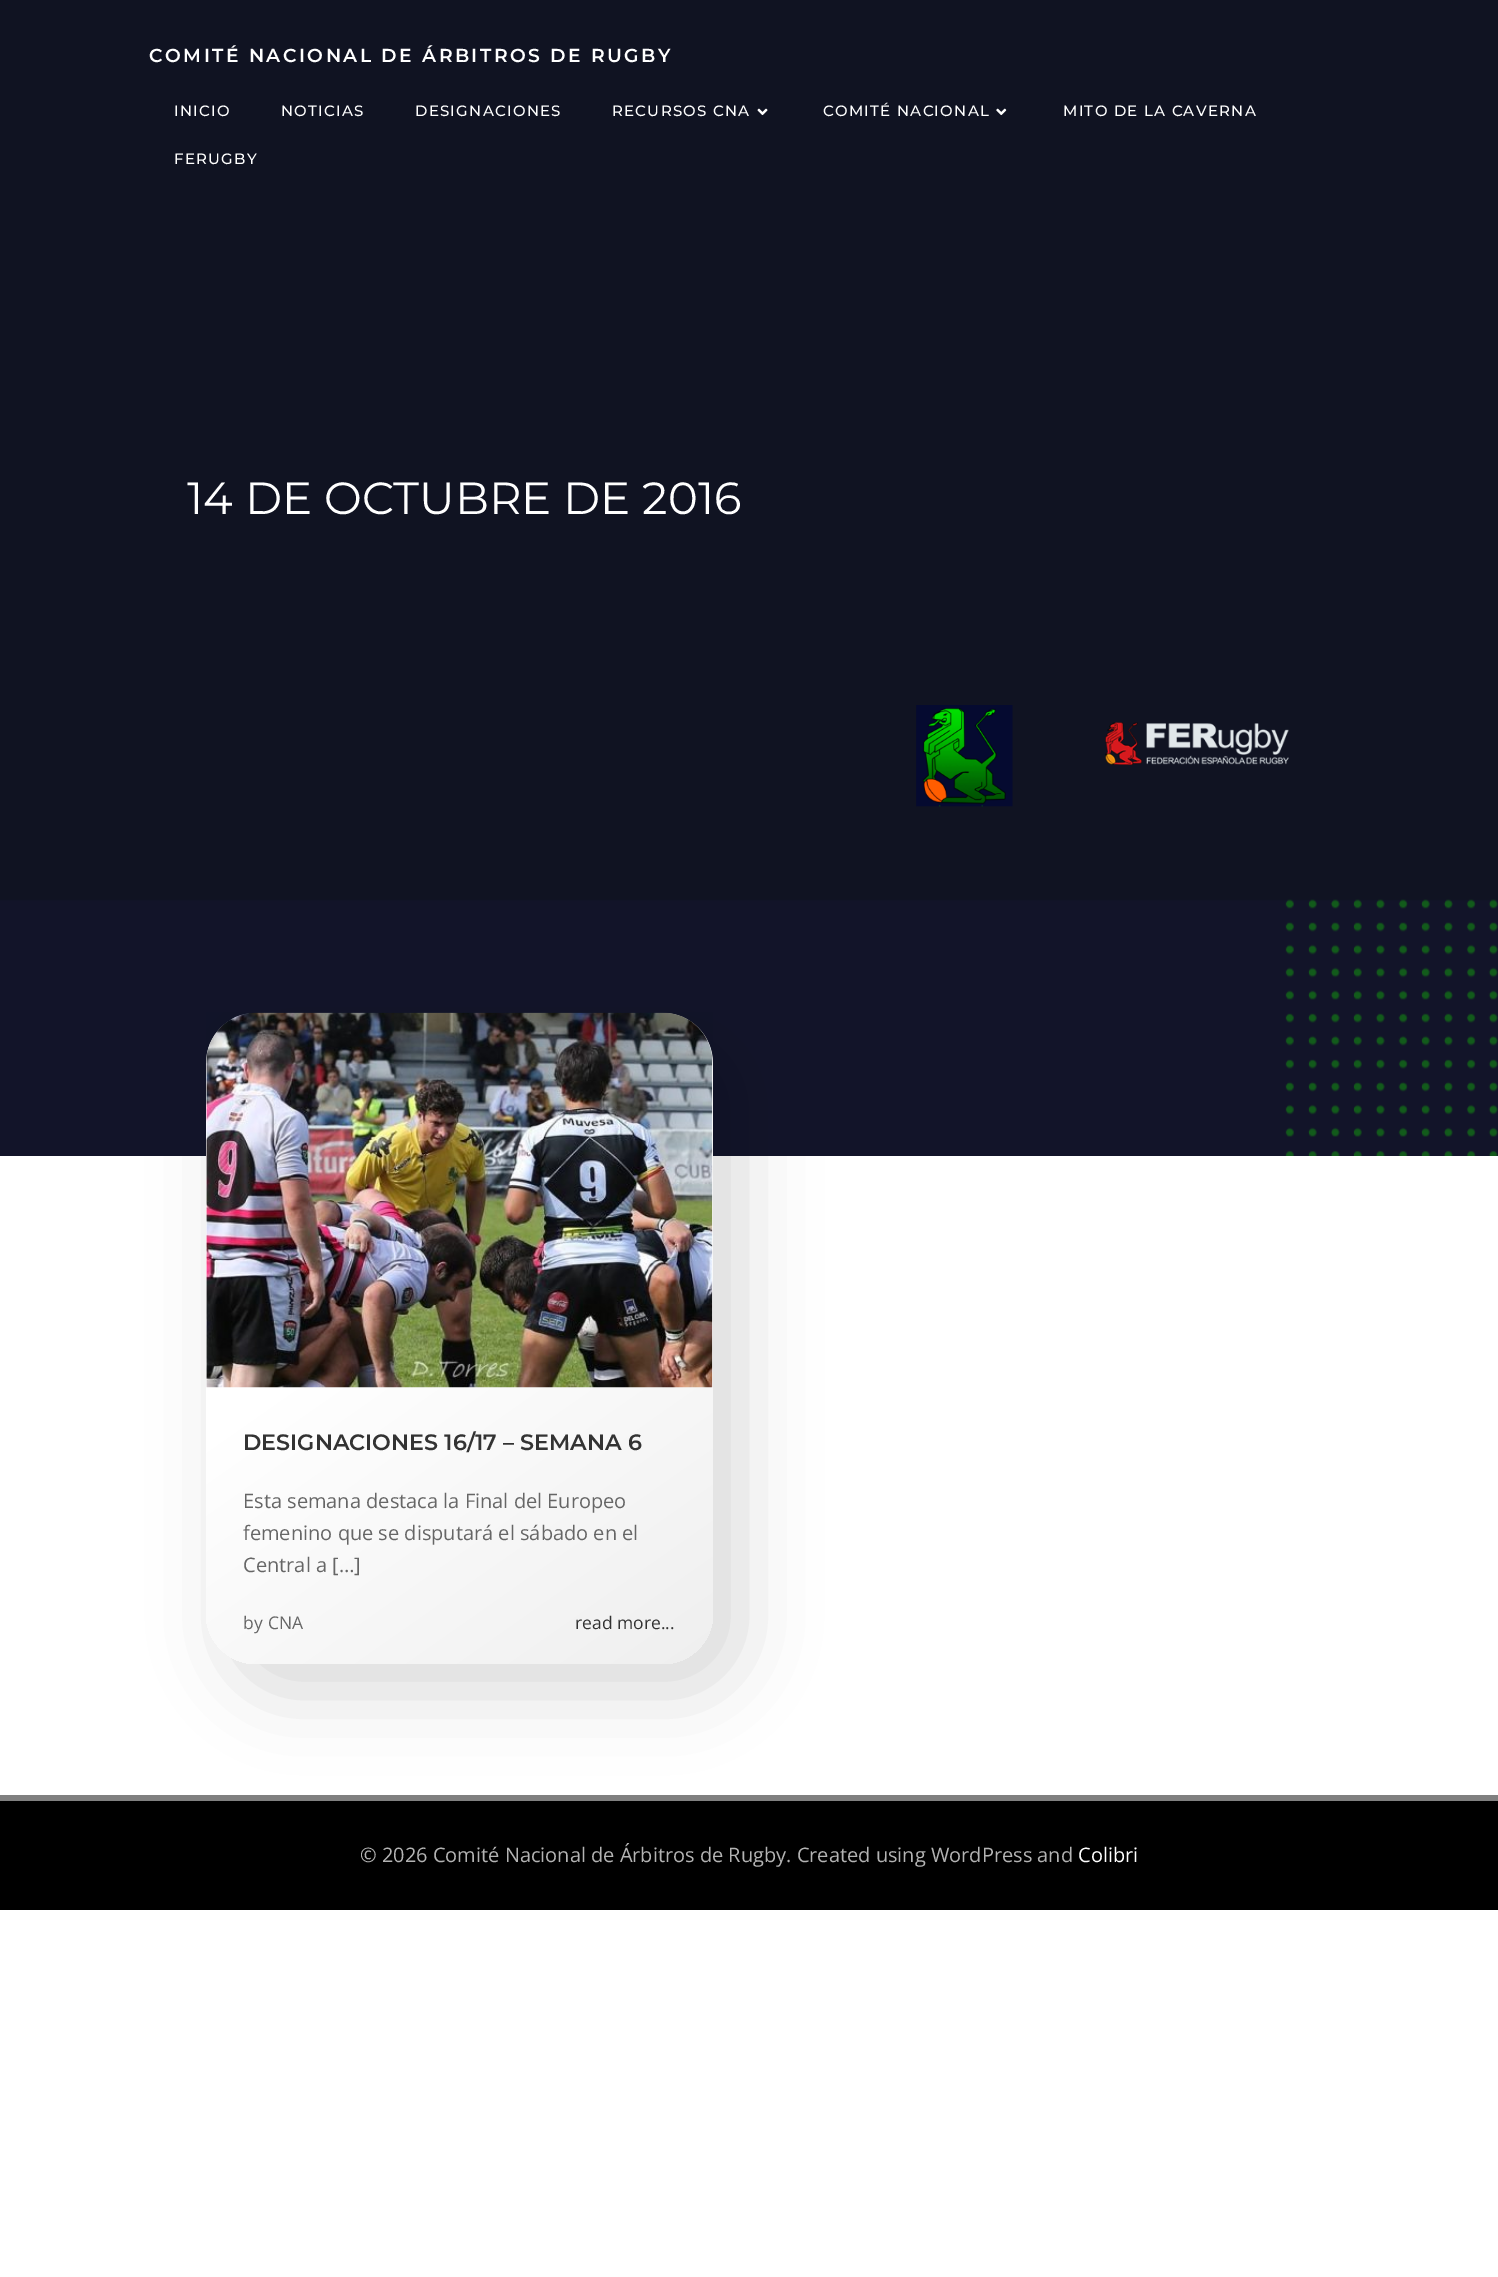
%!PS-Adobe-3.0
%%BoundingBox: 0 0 1498 2277
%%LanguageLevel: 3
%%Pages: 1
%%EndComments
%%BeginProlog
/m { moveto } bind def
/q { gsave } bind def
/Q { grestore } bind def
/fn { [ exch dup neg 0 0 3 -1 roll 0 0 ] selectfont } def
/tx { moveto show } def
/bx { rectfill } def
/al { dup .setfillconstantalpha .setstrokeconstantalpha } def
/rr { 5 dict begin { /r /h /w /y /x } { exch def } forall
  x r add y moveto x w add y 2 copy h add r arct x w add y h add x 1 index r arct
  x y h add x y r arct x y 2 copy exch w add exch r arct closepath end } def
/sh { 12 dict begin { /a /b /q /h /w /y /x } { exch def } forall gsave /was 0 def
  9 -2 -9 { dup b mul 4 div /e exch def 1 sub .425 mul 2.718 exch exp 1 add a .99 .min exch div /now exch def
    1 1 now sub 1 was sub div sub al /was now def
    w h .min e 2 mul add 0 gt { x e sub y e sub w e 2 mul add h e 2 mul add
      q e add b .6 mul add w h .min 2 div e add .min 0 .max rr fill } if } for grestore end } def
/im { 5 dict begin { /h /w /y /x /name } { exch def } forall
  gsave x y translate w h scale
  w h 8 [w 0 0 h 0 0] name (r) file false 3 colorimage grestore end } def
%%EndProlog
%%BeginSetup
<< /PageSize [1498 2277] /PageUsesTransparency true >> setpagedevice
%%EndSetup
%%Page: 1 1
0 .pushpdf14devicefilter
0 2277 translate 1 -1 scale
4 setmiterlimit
1 setgray
0 0 1498 2277 bx
0.063 0.075 0.133 setrgbcolor
0 0 1498 901 bx
/Montserrat-SemiBold 18.75 fn
1 setgray
149 62 m 2.5 0 (COMITÉ NACIONAL DE ÁRBITROS DE RUGBY) ashow
/Montserrat-Medium 15 fn
174 116 m 1.25 0 (INICIO) ashow
281 116 m 1.25 0 (NOTICIAS) ashow
415 116 m 1.25 0 (DESIGNACIONES) ashow
612 116 m 1.25 0 (RECURSOS CNA) ashow
(image0.raw) 757 108 11 8 im
823 116 m 1.25 0 (COMITÉ NACIONAL) ashow
(image1.raw) 996 108 11 8 im
1063 116 m 1.25 0 (MITO DE LA CAVERNA) ashow
174 164 m 1.25 0 (FERUGBY) ashow
(image2.raw) 0 899 1498 257 im
/Montserrat-Regular 45 fn
(14 DE OCTUBRE DE 2016) 187 514 tx
(image3.raw) 916 705 97 102 im
(image4.raw) 1105 722 184 43 im
0 setgray
0 1801 1498 109 bx
0.502 setgray
0 1795 1498 6 bx
0 setgray
229 1035 511 656 53 37.5 0.15 sh
q 206 1013 507 651 50 rr clip newpath
<< /ShadingType 2 /ColorSpace /DeviceRGB /Coords [223 1001 696 1676] /Extend [true true] /Function << /FunctionType 3 /Domain [0 1] /Functions [<< /FunctionType 2 /Domain [0 1] /C0 [1 1 1] /C1 [1 1 1] /N 1 >> << /FunctionType 2 /Domain [0 1] /C0 [1 1 1] /C1 [0.937 0.937 0.937] /N 1 >>] /Bounds [0.42] /Encode [0 1 0 1] >> >> shfill Q
(image5.raw) 206 1012 507 376 im
/Montserrat-SemiBold 22.25 fn
0.2 setgray
(DESIGNACIONES 16/17 – SEMANA 6) 243 1450 tx
/OpenSans-Regular 20 fn
0.4 setgray
(Esta semana destaca la Final del Europeo) 243 1508 tx
(femenino que se disputará el sábado en el) 243 1540 tx
(Central a […]) 243 1572 tx
/OpenSans-Regular 17.5 fn
(by) 243 1629 tx
(CNA) 268 1629 tx
0.2 setgray
(read more...) 575 1629 tx
/OpenSans-Regular 20 fn
0.702 setgray
(© 2026 Comité Nacional de Árbitros de Rugby. Created using WordPress and) 360 1862 tx
1 setgray
(Colibri) 1078 1862 tx
.poppdf14devicefilter showpage
%%EOF
